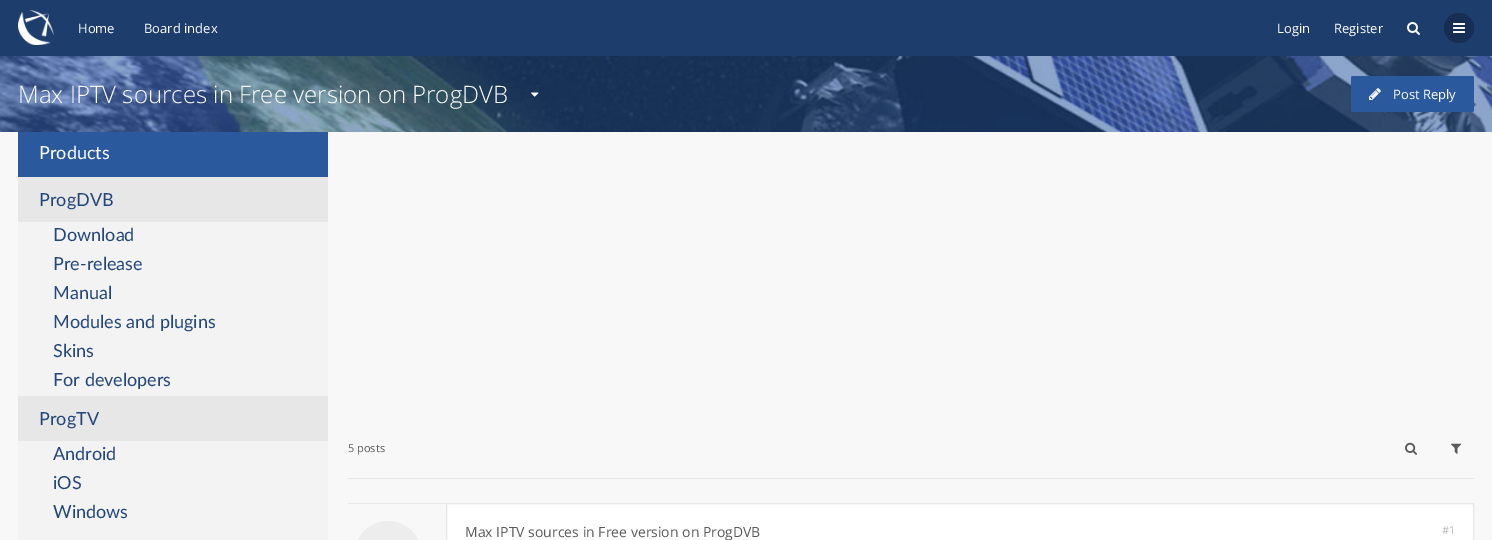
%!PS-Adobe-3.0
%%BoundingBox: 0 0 1492 540
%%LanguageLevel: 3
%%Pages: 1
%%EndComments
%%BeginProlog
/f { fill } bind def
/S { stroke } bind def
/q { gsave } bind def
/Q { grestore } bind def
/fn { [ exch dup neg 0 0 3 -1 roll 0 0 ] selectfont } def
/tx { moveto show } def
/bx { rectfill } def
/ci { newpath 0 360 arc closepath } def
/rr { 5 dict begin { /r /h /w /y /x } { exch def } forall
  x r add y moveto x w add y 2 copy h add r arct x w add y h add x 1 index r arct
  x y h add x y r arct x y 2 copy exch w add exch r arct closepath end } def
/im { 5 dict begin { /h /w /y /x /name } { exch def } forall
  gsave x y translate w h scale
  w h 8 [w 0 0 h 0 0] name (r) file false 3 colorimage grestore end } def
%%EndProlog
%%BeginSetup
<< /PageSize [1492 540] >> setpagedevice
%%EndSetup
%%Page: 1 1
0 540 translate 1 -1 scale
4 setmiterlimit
0.973 setgray
0 0 1492 540 bx
0.114 0.239 0.427 setrgbcolor
0 0 1492 56 bx
(image0.raw) 18 10 36 35 im
/OpenSans-Regular 13 fn
1 setgray
(Home) 78 33 tx
(Board index) 144 33 tx
(Login) 1277 33 tx
(Register) 1334 33 tx
(image1.raw) 1407 22 13 13 im
0.086 0.18 0.325 setrgbcolor
1459 28 15 ci f
(image2.raw) 1453 23 12 10 im
(image3.raw) 0 56 1492 76 im
/OpenSans-Light 24 fn
1 setgray
(Max IPTV sources in Free version on ProgDVB) 18 103 tx
(image4.raw) 531 92 8 5 im
0.165 0.349 0.62 setrgbcolor
1351 76 123 36 2 rr f
(image5.raw) 1369 88 12 12 im
/OpenSans-Regular 13 fn
1 setgray
(Post Reply) 1393 99 tx
0.165 0.349 0.62 setrgbcolor
18 132 310 45 bx
/Lato-Regular 18 fn
1 setgray
(Products) 39 159 tx
0.91 0.906 0.906 setrgbcolor
18 177 310 45 bx
0.141 0.278 0.482 setrgbcolor
(ProgDVB) 39 206 tx
0.953 setgray
18 222 310 174 bx
0.141 0.278 0.482 setrgbcolor
(Download) 53 241 tx
(Pre-release) 53 270 tx
(Manual) 53 299 tx
(Modules and plugins) 53 328 tx
(Skins) 53 357 tx
(For developers) 53 386 tx
0.91 0.906 0.906 setrgbcolor
18 396 310 45 bx
0.141 0.278 0.482 setrgbcolor
(ProgTV) 39 425 tx
0.953 setgray
18 441 310 99 bx
0.141 0.278 0.482 setrgbcolor
(Android) 53 460 tx
(iOS) 53 489 tx
(Windows) 53 518 tx
0.91 0.906 0.906 setrgbcolor
348 478 1126 1 bx
/OpenSans-Regular 11 fn
0.353 setgray
(5 posts) 348 452 tx
(image6.raw) 1405 442 12 13 im
(image7.raw) 1451 443 11 11 im
0.91 0.906 0.906 setrgbcolor
348 503 1126 1 bx
0.929 setgray
355 521 66 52 33 rr f
1 setgray
446.5 503.5 1027 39 1.5 rr q f Q
0.91 0.906 0.906 setrgbcolor
S
/OpenSans-Regular 14 fn
0.353 setgray
(Max IPTV sources in Free version on ProgDVB) 465 537 tx
/OpenSans-Regular 11 fn
0.718 setgray
(#1) 1442 534 tx
showpage
%%EOF
